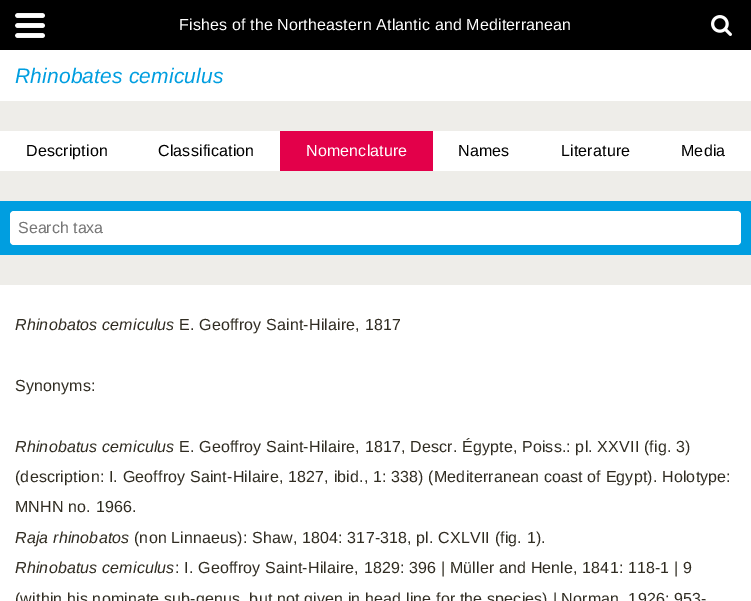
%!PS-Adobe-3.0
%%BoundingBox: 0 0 751 601
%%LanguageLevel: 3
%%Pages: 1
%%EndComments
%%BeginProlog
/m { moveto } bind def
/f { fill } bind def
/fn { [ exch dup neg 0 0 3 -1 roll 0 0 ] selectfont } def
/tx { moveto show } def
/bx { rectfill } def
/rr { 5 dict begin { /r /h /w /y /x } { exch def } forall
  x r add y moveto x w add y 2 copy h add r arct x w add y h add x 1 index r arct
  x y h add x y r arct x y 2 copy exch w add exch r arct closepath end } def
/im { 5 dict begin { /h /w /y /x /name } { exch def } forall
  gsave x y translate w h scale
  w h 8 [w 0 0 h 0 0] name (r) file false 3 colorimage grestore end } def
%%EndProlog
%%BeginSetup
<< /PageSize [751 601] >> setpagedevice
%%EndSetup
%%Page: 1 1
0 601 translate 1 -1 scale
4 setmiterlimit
0.933 0.929 0.914 setrgbcolor
0 0 751 601 bx
0 setgray
0 0 751 50 bx
(image0.raw) 15 13 30 25 im
/LiberationSans-Regular 16 fn
1 setgray
179 30 m 0.16 0 (Fishes of the Northeastern Atlantic and Mediterranean) ashow
(image1.raw) 711 15 21 21 im
0 50 751 51 bx
/LiberationSans-Italic 21 fn
0 0.62 0.878 setrgbcolor
15 83 m 0.16 0 (Rhinobates cemiculus) ashow
1 setgray
0 131 751 40 bx
/LiberationSans-Regular 16 fn
0 setgray
26 156 m 0.16 0 (Description) ashow
158 156 m 0.16 0 (Classification) ashow
0.89 0 0.29 setrgbcolor
280 131 153 40 bx
1 setgray
306 156 m 0.16 0 (Nomenclature) ashow
0 setgray
458 156 m 0.16 0 (Names) ashow
561 156 m 0.16 0 (Literature) ashow
681 156 m 0.16 0 (Media) ashow
0 0.62 0.878 setrgbcolor
0 201 751 54 bx
1 setgray
10 211 731 34 4 rr f
0.459 setgray
(Search taxa) 18 233 tx
1 setgray
0 285 751 316 bx
/LiberationSans-Italic 16 fn
0.188 0.173 0.133 setrgbcolor
15 330 m 0.16 0 (Rhinobatos cemiculus) ashow
/LiberationSans-Regular 16 fn
179 330 m 0.16 0 (E. Geoffroy Saint-Hilaire, 1817) ashow
15 391 m 0.16 0 (Synonyms:) ashow
/LiberationSans-Italic 16 fn
15 452 m 0.16 0 (Rhinobatus cemiculus) ashow
/LiberationSans-Regular 16 fn
179 452 m 0.16 0 (E. Geoffroy Saint-Hilaire, 1817, Descr. Égypte, Poiss.: pl. XXVII \(fig. 3\)) ashow
15 482 m 0.16 0 (\(description: I. Geoffroy Saint-Hilaire, 1827, ibid., 1: 338\) \(Mediterranean coast of Egypt\). Holotype:) ashow
15 512 m 0.16 0 (MNHN no. 1966.) ashow
/LiberationSans-Italic 16 fn
15 543 m 0.16 0 (Raja rhinobatos) ashow
/LiberationSans-Regular 16 fn
134 543 m 0.16 0 (\(non Linnaeus\): Shaw, 1804: 317-318, pl. CXLVII \(fig. 1\).) ashow
/LiberationSans-Italic 16 fn
15 573 m 0.16 0 (Rhinobatus cemiculus) ashow
/LiberationSans-Regular 16 fn
175 573 m 0.16 0 (: I. Geoffroy Saint-Hilaire, 1829: 396 | Müller and Henle, 1841: 118-1 | 9) ashow
15 604 m 0.16 0 (\(within his nominate sub-genus, but not given in head line for the species\) | Norman, 1926: 953-) ashow
showpage
%%EOF
